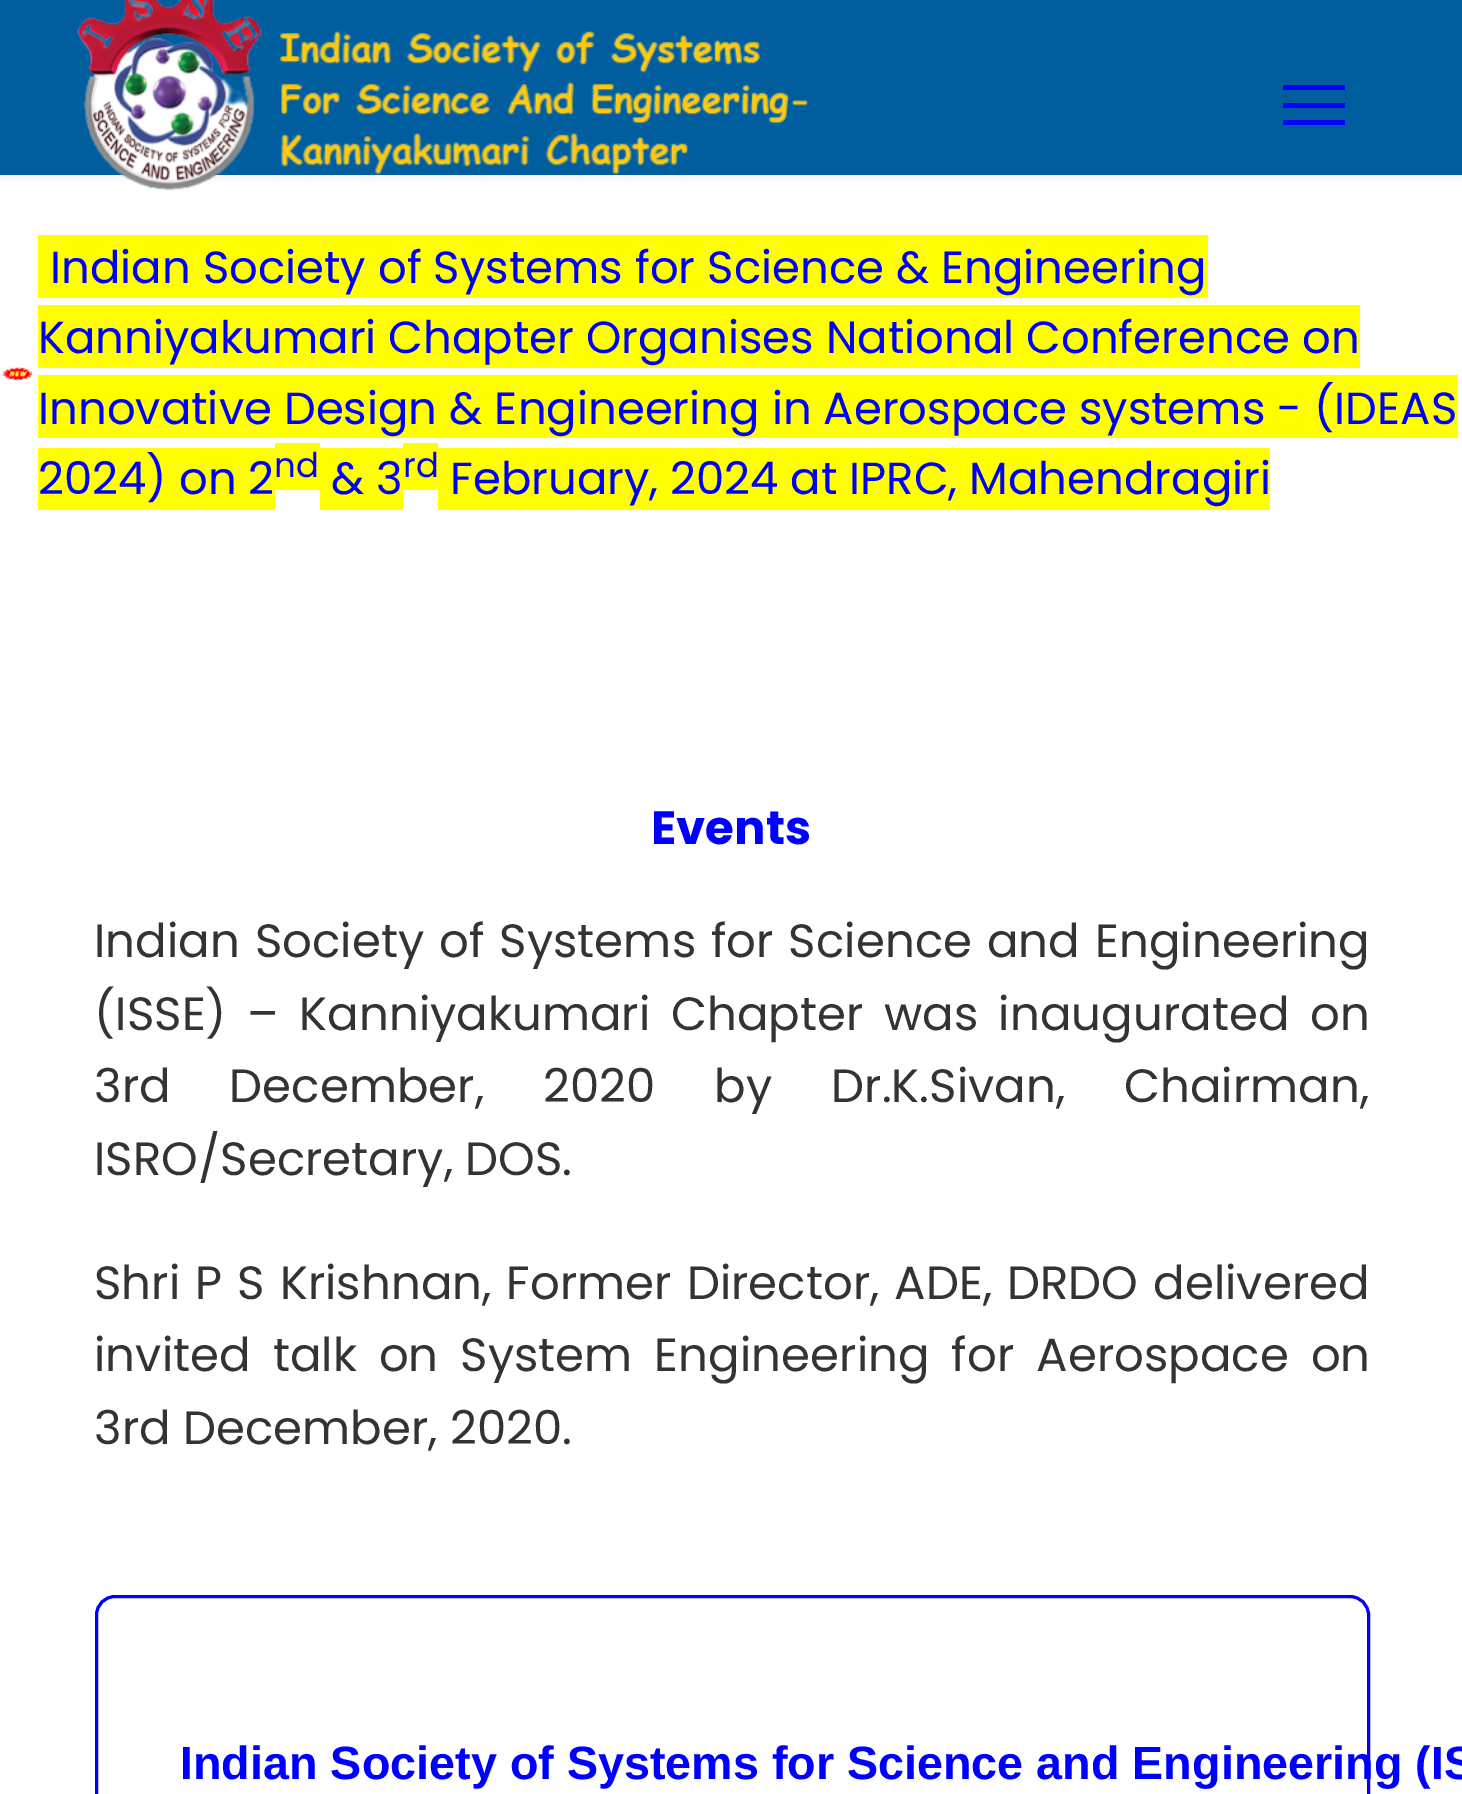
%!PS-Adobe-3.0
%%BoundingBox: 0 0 1462 1794
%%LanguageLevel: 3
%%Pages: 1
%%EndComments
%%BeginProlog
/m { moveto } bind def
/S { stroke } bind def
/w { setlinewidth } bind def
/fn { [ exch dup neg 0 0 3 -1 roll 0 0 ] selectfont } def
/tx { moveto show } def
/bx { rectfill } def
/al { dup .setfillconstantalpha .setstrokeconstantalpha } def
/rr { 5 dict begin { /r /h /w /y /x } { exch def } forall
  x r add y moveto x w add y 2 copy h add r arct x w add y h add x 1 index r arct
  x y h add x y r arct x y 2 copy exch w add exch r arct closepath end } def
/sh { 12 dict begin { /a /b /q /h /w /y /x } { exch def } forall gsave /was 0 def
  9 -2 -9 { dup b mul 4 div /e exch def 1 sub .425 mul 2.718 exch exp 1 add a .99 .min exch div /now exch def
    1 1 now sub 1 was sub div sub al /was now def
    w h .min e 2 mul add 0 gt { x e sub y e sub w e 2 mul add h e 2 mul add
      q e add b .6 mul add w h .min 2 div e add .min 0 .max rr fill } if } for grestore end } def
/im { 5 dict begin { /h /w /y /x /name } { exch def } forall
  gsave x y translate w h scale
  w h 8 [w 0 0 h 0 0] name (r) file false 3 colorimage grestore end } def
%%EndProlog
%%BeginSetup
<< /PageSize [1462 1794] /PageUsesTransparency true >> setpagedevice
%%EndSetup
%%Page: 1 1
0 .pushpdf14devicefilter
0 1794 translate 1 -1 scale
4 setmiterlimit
1 setgray
0 0 1462 1794 bx
0 setgray
0 0 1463 175 0 5 0.1 sh
0 0.369 0.624 setrgbcolor
0 0 1462 175 bx
(image0.raw) 77 0 732 191 im
0 0 1 setrgbcolor
1283 85 62 5 bx
1283 103 62 5 bx
1283 120 62 5 bx
(image1.raw) 2 367 31 13 im
1 1 0 setrgbcolor
38 235 1170 63 bx
/Poppins-Regular 45 fn
0 0 1 setrgbcolor
(Indian Society of Systems for Science & Engineering) 50 283 tx
1 1 0 setrgbcolor
38 305 1322 63 bx
0 0 1 setrgbcolor
(Kanniyakumari Chapter Organises National Conference on) 38 353 tx
1 1 0 setrgbcolor
38 375 1420 63 bx
0 0 1 setrgbcolor
(Innovative Design & Engineering in Aerospace systems - \(IDEAS) 38 424 tx
1 1 0 setrgbcolor
38 448 237 62 bx
0 0 1 setrgbcolor
(2024\) on 2) 38 494 tx
1 1 0 setrgbcolor
275 443 45 47 bx
/Poppins-Regular 34 fn
0 0 1 setrgbcolor
(nd) 274 477 tx
1 1 0 setrgbcolor
320 448 83 62 bx
/Poppins-Regular 45 fn
0 0 1 setrgbcolor
(& 3) 331 494 tx
1 1 0 setrgbcolor
403 443 35 47 bx
/Poppins-Regular 34 fn
0 0 1 setrgbcolor
(rd) 403 477 tx
1 1 0 setrgbcolor
438 448 832 62 bx
/Poppins-Regular 45 fn
0 0 1 setrgbcolor
(February, 2024 at IPRC, Mahendragiri) 450 494 tx
/Poppins-Bold 46.7 fn
(Events) 651 844 tx
/Poppins-Regular 46.7 fn
0.2 setgray
94 957 m 2.5 0 32 (Indian Society of Systems for Science and Engineering) widthshow
94 1030 m 8 0 32 (\(ISSE\) – Kanniyakumari Chapter was inaugurated on) widthshow
94 1102 m 46.5 0 32 (3rd December, 2020 by Dr.K.Sivan, Chairman,) widthshow
(ISRO/Secretary, DOS.) 94 1175 tx
94 1299 m 2.5 0 32 (Shri P S Krishnan, Former Director, ADE, DRDO delivered) widthshow
94 1371 m 9.5 0 32 (invited talk on System Engineering for Aerospace on) widthshow
(3rd December, 2020.) 94 1444 tx
0 0 1 setrgbcolor
3 w
96.5 1596.5 1272 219 18.5 rr S
/LiberationSans-Bold 46.7 fn
(Indian Society of Systems for Science and Engineering \(IS) 180 1779 tx
.poppdf14devicefilter showpage
%%EOF
